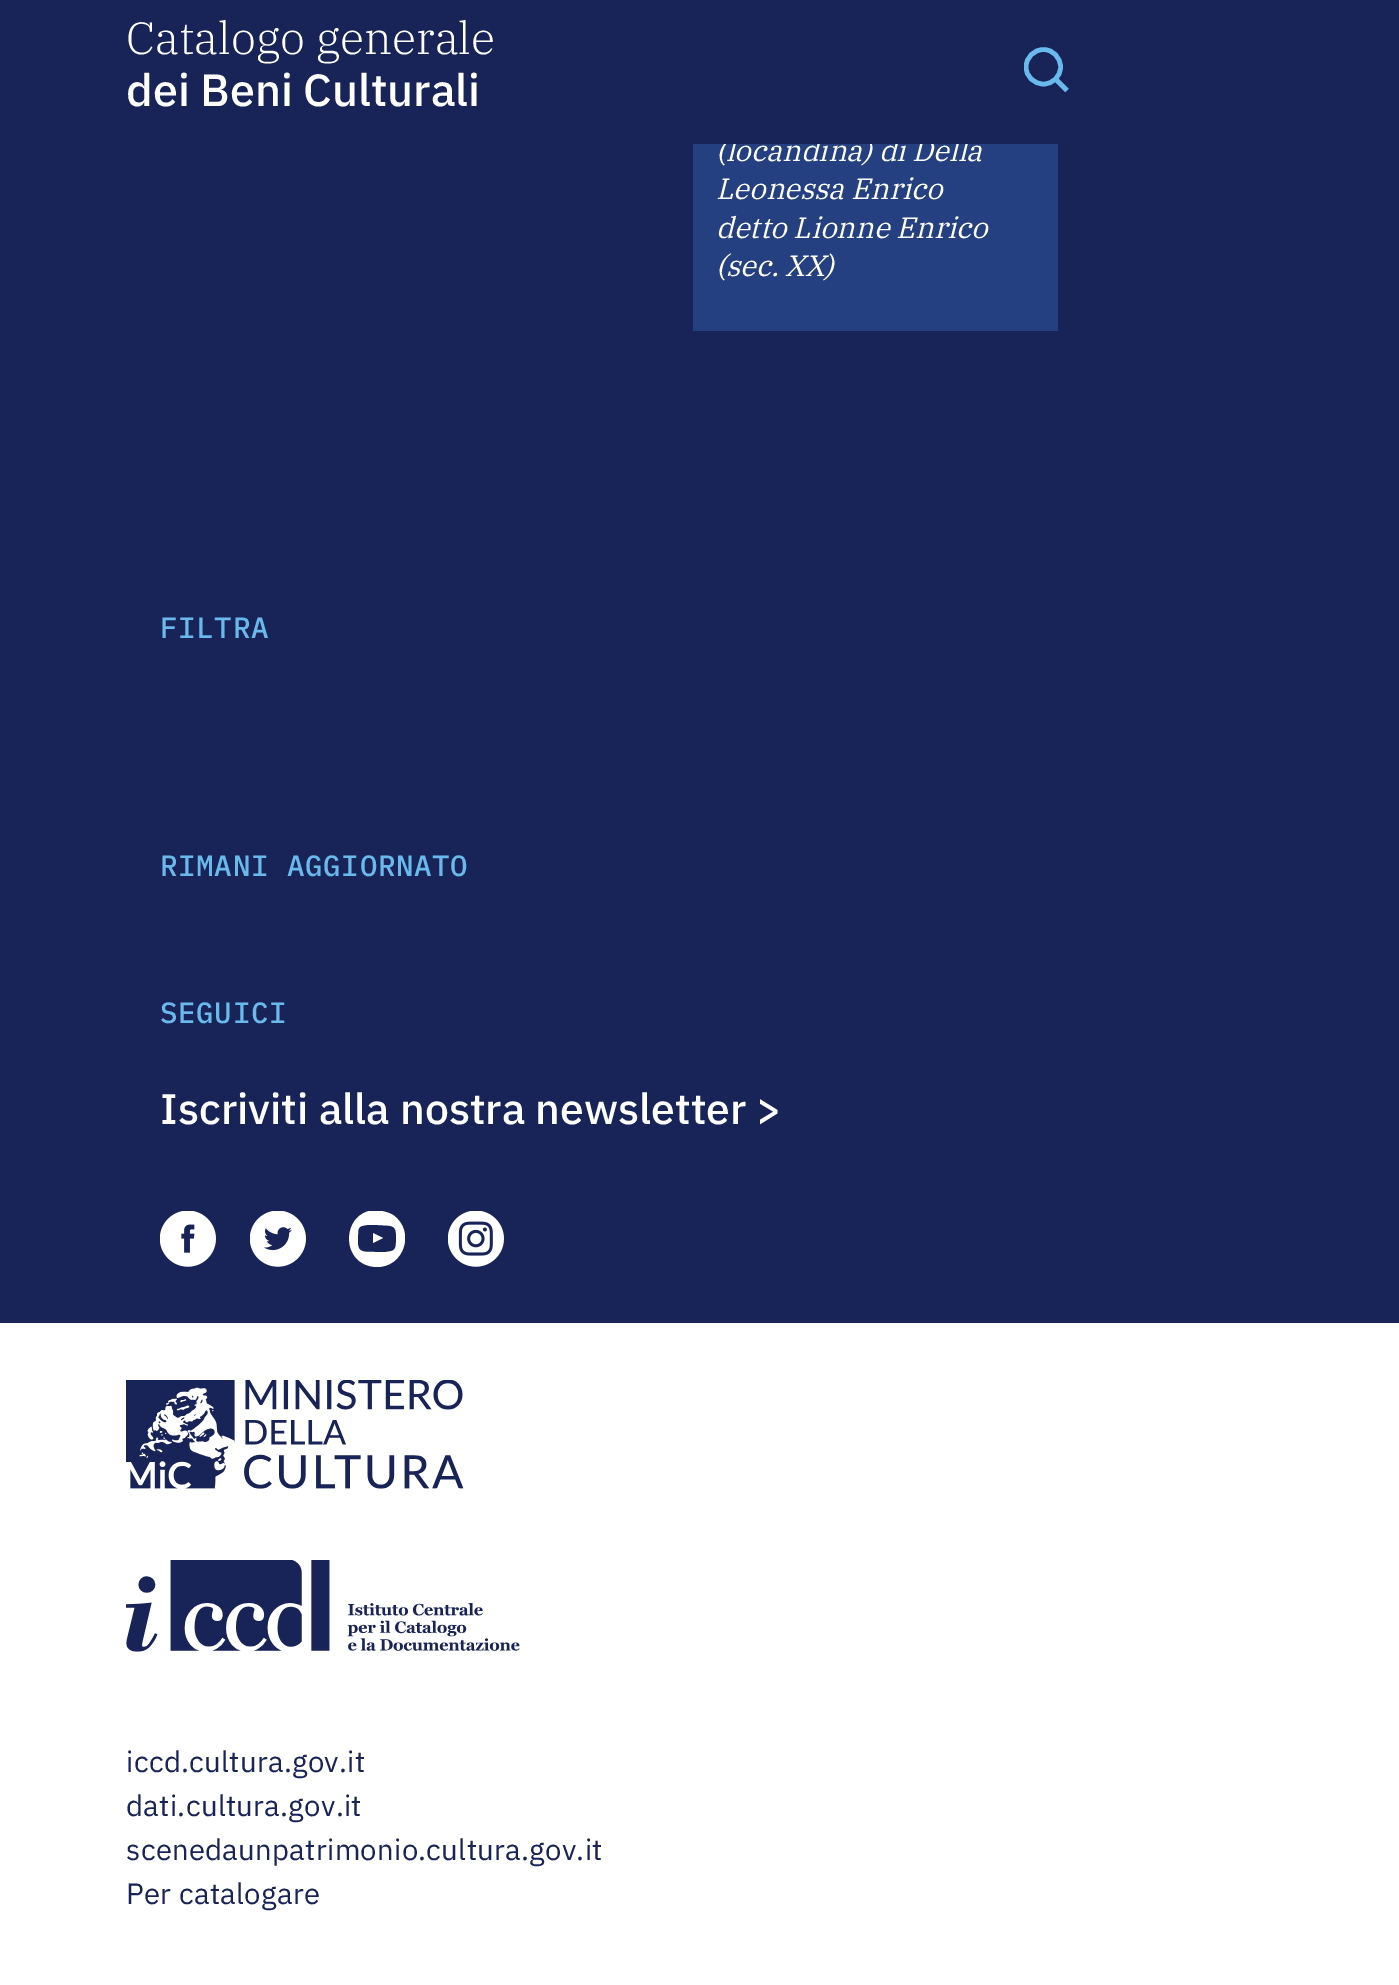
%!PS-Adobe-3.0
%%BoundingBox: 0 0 1399 1985
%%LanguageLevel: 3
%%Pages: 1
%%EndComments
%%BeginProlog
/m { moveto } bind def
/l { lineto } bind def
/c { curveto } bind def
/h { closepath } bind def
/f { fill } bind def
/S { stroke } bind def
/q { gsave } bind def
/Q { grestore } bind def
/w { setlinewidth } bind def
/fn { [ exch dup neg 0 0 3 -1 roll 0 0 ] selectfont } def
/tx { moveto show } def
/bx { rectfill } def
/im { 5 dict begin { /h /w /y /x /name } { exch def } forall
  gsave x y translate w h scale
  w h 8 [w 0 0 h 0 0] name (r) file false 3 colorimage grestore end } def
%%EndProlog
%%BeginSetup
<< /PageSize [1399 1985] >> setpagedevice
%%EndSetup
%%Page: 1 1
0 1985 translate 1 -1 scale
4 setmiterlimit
1 setgray
0 0 1399 1985 bx
0.094 0.137 0.345 setrgbcolor
0 144 1399 1179 bx
0.141 0.251 0.502 setrgbcolor
693 144 365 187 bx
/IBMPlexSerif-Italic 29.25 fn
1 setgray
(\(locandina\) di Della) 716 161 tx
0.094 0.137 0.345 setrgbcolor
0 0 1399 144 bx
/IBMPlexSerif-Light 45 fn
1 setgray
(Catalogo generale) 126 54 tx
/IBMPlexSans-Medium 45 fn
(dei Beni Culturali) 126 106 tx
q
1024 47 45 45 rectclip
0.412 0.725 0.925 setrgbcolor
4.6 w
1043.5 84 m 1053 84 1060.5 76.5 1060.5 67 c 1060.5 57.5 1053 49.5 1043.5 49.5 c 1034 49.5 1026 57.5 1026 67 c 1026 76.5 1034 84 1043.5 84 c h S
Q
0.412 0.725 0.925 setrgbcolor
4.6 w
1056 79.5 m 1067 90.5 l S
/IBMPlexSerif-Italic 29.25 fn
1 setgray
(Leonessa Enrico) 716 199 tx
(detto Lionne Enrico) 716 238 tx
(\(sec. XX\)) 716 276 tx
/IBMPlexMono-Medium 29.25 fn
0.412 0.725 0.925 setrgbcolor
160 638 m 0.6 0 (FILTRA) ashow
160 876 m 0.6 0 (RIMANI AGGIORNATO) ashow
160 1023 m 0.6 0 (SEGUICI) ashow
/IBMPlexSans-Medium 42.75 fn
1 setgray
(Iscriviti alla nostra newsletter >) 160 1124 tx
(image0.raw) 160 1211 56 56 im
(image1.raw) 250 1211 56 56 im
q
349 1211 56 56 rectclip
377 1210 m 341 1210 339 1265 376 1267 c 404 1268 416 1231 393 1215 c 388 1212 382 1211 377 1210 c 396 1242 m 396 1251 393 1251 386 1252 c 375 1252 l 359 1252 357 1252 358 1235 c 358 1227 359 1226 367 1225 c 378 1225 l 394 1226 397 1224 396 1242 c 373 1243 m 383 1238 l 373 1233 l h f
Q
(image2.raw) 448 1211 56 56 im
(image3.raw) 126 1380 338 109 im
(image4.raw) 126 1560 394 92 im
/IBMPlexSans-Regular 29.25 fn
0.094 0.137 0.345 setrgbcolor
126 1772 m 0.3 0 (iccd.cultura.gov.it) ashow
126 1816 m 0.3 0 (dati.cultura.gov.it) ashow
126 1860 m 0.3 0 (scenedaunpatrimonio.cultura.gov.it) ashow
126 1904 m 0.3 0 (Per catalogare) ashow
showpage
%%EOF
